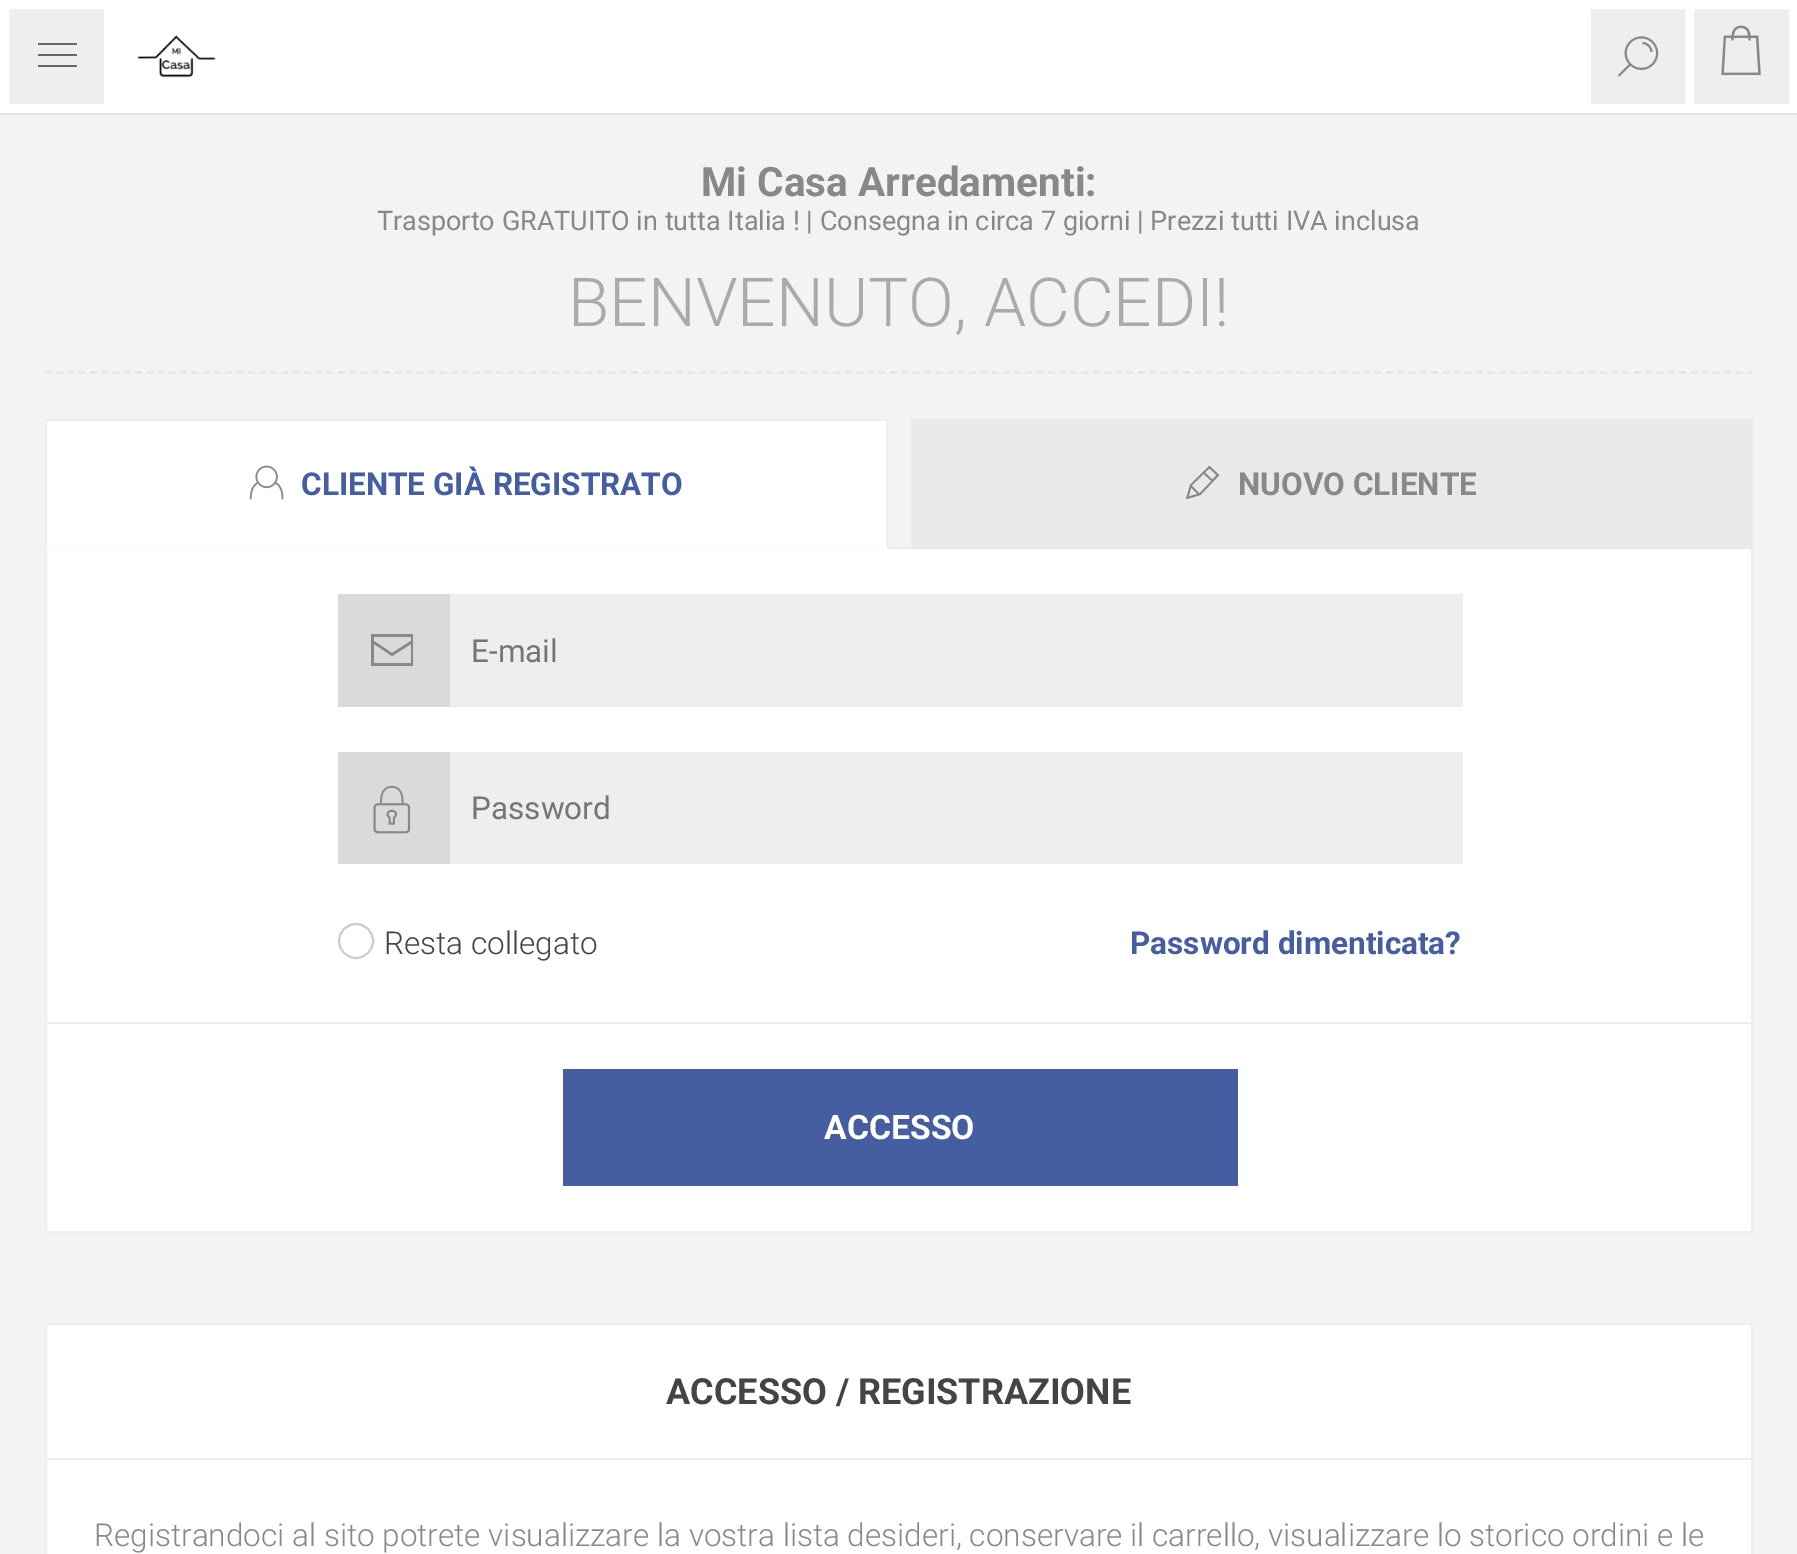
%!PS-Adobe-3.0
%%BoundingBox: 0 0 1797 1554
%%LanguageLevel: 3
%%Pages: 1
%%EndComments
%%BeginProlog
/m { moveto } bind def
/l { lineto } bind def
/h { closepath } bind def
/f { fill } bind def
/S { stroke } bind def
/q { gsave } bind def
/Q { grestore } bind def
/w { setlinewidth } bind def
/fn { [ exch dup neg 0 0 3 -1 roll 0 0 ] selectfont } def
/tx { moveto show } def
/bx { rectfill } def
/ci { newpath 0 360 arc closepath } def
/im { 5 dict begin { /h /w /y /x /name } { exch def } forall
  gsave x y translate w h scale
  w h 8 [w 0 0 h 0 0] name (r) file false 3 colorimage grestore end } def
%%EndProlog
%%BeginSetup
<< /PageSize [1797 1554] >> setpagedevice
%%EndSetup
%%Page: 1 1
0 1554 translate 1 -1 scale
4 setmiterlimit
0.953 setgray
0 0 1797 1554 bx
0.89 setgray
0 112 m 0 115 l 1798 115 l 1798 2 l 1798 112 l h f
1 setgray
113 0 1572 113 bx
(image0.raw) 137 35 79 43 im
0.933 setgray
1591 9 94 95 bx
(image1.raw) 1617 36 42 41 im
4.5 4.5 m 108.5 4.5 l 108.5 108.5 l 4.5 108.5 l h q f Q
1 setgray
9 w
S
0.4 setgray
38 43 39 2 bx
38 54 39 2 bx
38 65 39 2 bx
0.933 setgray
1689.5 4.5 m 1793.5 4.5 l 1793.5 108.5 l 1689.5 108.5 l h q f Q
1 setgray
S
(image2.raw) 1721 25 40 51 im
/Roboto-Bold 40.5 fn
0.533 setgray
(Mi Casa Arredamenti:) 701 196 tx
/Roboto-Regular 27 fn
(Trasporto GRATUITO in tutta Italia ! | Consegna in circa 7 giorni | Prezzi tutti IVA inclusa) 377 230 tx
0.902 setgray
2.2 w
[6.75 4.52] 0 setdash
45 372.5 m 1753 372.5 l S
/Roboto-Light 67.5 fn
0.667 setgray
(BENVENUTO, ACCEDI!) 568 326 tx
1 setgray
46 548 m 1752 548 l 1752 1232 l 46 1232 l h q f Q
0.933 setgray
2 w
[] 0 setdash
S
1 setgray
45 421 844 128 bx
0.933 setgray
45 419 844 2 bx
889 418 m 889 549 l 886 547 l 886 421 l h f
45 549 m 45 418 l 47 421 l 47 547 l h f
(image3.raw) 249 465 35 35 im
/Roboto-Bold 31.5 fn
0.267 0.369 0.631 setrgbcolor
(CLIENTE GIÀ REGISTRATO) 301 495 tx
0.914 setgray
911 419 842 130 bx
(image4.raw) 1185 465 35 35 im
0.533 setgray
(NUOVO CLIENTE) 1238 495 tx
0.933 setgray
450 594 1013 113 bx
0.855 setgray
338 594 112 113 bx
0.533 setgray
371 634 m 371 666 l 413 666 l 413 634 l h 411 637 m 411 641 l 392 653 l 374 641 l 374 637 l h 374 663 m 374 644 l 392 656 l 411 644 l 411 663 l h f
/Roboto-Regular 31.5 fn
0.459 setgray
(E-mail) 471 662 tx
0.933 setgray
450 752 1013 112 bx
0.855 setgray
338 752 112 112 bx
(image5.raw) 373 785 38 49 im
0.459 setgray
(Password) 471 819 tx
0.8 setgray
356 941 17 ci S
/Roboto-Light 31.5 fn
0.267 setgray
(Resta collegato) 384 954 tx
/Roboto-Bold 31.5 fn
0.267 0.369 0.631 setrgbcolor
(Password dimenticata?) 1130 954 tx
0.933 setgray
47 1022 1704 2 bx
0.267 0.369 0.631 setrgbcolor
563 1069 675 117 bx
/Roboto-Bold 33.75 fn
1 setgray
(ACCESSO) 824 1139 tx
46 1324 m 1752 1324 l 1752 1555 l 46 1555 l h q f Q
0.933 setgray
S
47 1458 1704 2 bx
/Roboto-Bold 36 fn
0.267 setgray
(ACCESSO / REGISTRAZIONE) 666 1404 tx
/Roboto-Light 31.5 fn
0.533 setgray
(Registrandoci al sito potrete visualizzare la vostra lista desideri, conservare il carrello, visualizzare lo storico ordini e le) 94 1546 tx
showpage
%%EOF
